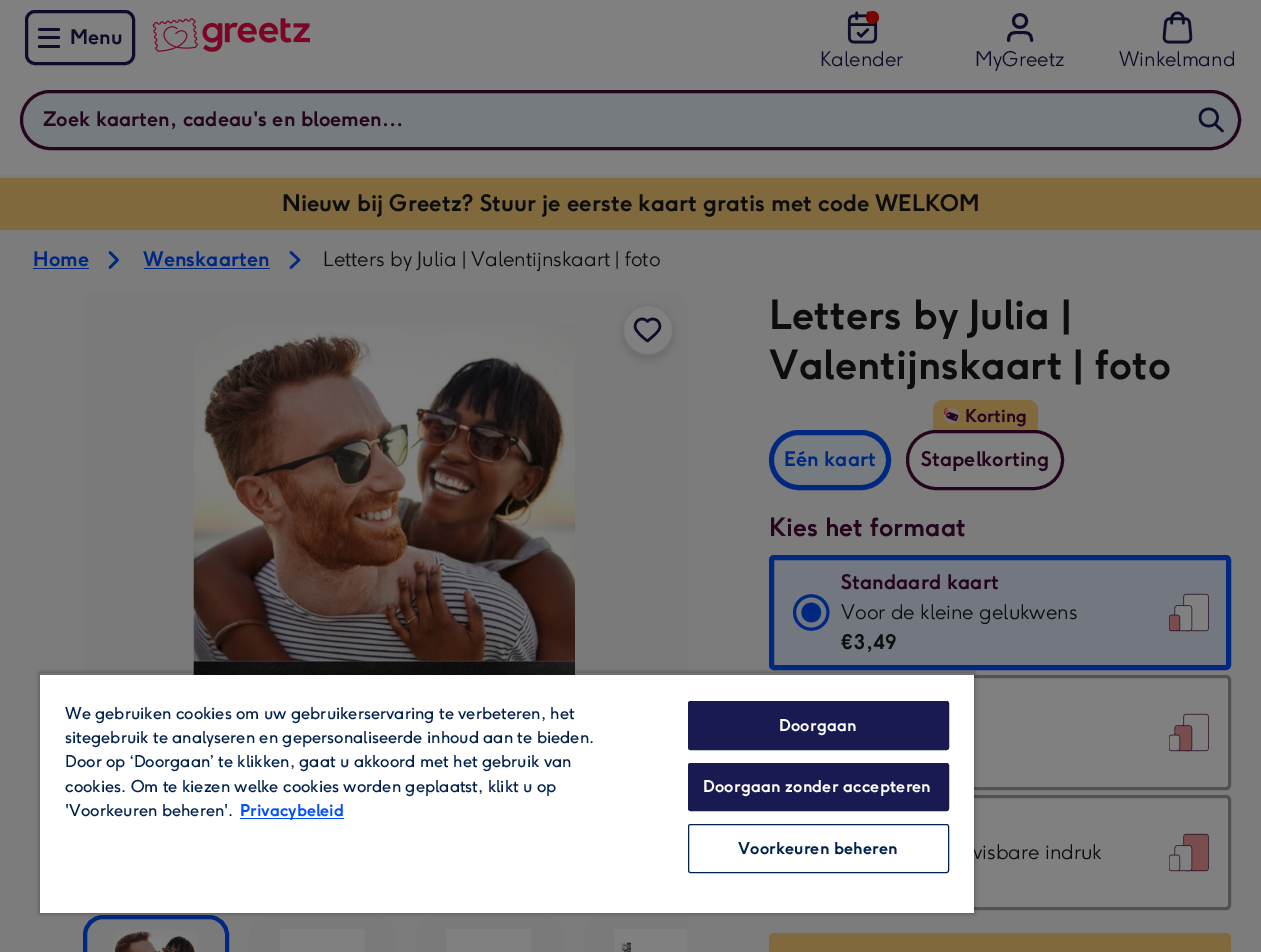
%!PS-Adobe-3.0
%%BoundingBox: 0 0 1261 952
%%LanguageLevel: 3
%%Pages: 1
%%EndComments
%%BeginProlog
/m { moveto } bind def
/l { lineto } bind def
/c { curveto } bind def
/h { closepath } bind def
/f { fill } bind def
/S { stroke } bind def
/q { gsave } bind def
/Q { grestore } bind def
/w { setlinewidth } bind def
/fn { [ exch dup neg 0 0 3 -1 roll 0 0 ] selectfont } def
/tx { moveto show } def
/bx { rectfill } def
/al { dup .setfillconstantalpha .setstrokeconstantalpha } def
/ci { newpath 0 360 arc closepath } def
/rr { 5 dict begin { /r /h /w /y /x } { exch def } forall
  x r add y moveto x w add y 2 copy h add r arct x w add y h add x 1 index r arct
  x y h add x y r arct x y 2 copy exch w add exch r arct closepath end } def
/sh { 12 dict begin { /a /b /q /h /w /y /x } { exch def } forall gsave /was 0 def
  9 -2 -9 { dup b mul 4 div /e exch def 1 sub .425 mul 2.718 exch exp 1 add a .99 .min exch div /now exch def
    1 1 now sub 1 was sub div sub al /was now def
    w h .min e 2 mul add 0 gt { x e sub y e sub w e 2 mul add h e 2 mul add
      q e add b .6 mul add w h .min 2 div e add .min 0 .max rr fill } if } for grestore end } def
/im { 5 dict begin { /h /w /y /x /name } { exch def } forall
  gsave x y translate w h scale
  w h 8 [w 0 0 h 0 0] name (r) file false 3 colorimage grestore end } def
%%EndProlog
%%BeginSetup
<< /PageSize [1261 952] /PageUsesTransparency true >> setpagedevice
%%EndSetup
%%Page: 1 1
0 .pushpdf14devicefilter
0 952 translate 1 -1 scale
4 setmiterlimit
0.486 0.486 0.49 setrgbcolor
0 0 1261 952 bx
0.502 setgray
0 0 1261 175 bx
0.051 0.051 0.161 setrgbcolor
3 w
26.5 11.5 107 52 8.5 rr S
38 28 22 3 1.5 rr f
38 36 22 3 1.5 rr f
38 45 22 3 1.5 rr f
/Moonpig-Bold 20 fn
(Menu) 70 44 tx
(image0.raw) 152 18 158 34 im
(image1.raw) 847 11 31 33 im
0.463 0.031 0 setrgbcolor
872.5 17.5 6.5 ci f
/Moonpig-Light 20 fn
0.051 0.051 0.161 setrgbcolor
(Kalender) 820 66 tx
2.9 w
1 setlinecap
1 setlinejoin
1031.5 40.5 m 1031.5 32 1027 32.5 1020 32.5 c 1013 32.5 1008.5 32 1008.5 40.5 c 1026.5 21 m 1026.5 29.5 1013.5 29.5 1013.5 21 c 1013.5 12.5 1026.5 12.5 1026.5 21 c S
(MyGreetz) 975 66 tx
(image2.raw) 1162 11 31 33 im
(Winkelmand) 1119 66 tx
0.463 0.482 0.498 setrgbcolor
21.5 91.5 1218 57 28.5 rr q f Q
0.141 0.02 0.114 setrgbcolor
3 w
0 setlinecap
0 setlinejoin
S
/Moonpig-Bold 20 fn
(Zoek kaarten, cadeau's en bloemen…) 43 126 tx
0.051 0.051 0.161 setrgbcolor
2.5 w
1 setlinecap
1 setlinejoin
1222.5 131 m 1215 124 l 1217.5 117.5 m 1217.5 129 1200 129 1200 117.5 c 1200 106 1217.5 106 1217.5 117.5 c S
0.498 0.412 0.239 setrgbcolor
0 178 1261 52 bx
/Moonpig-Bold 22.5 fn
0.051 setgray
(Nieuw bij Greetz? Stuur je eerste kaart gratis met code WELKOM) 282 211 tx
/Moonpig-Bold 20 fn
0 0.157 0.502 setrgbcolor
(Home) 33 266 tx
33 268 56 1 bx
110 267.5 m 117.5 260 l 110 252.5 l S
(Wenskaarten) 143 266 tx
144 268 126 1 bx
291 267.5 m 299 260 l 291 252.5 l S
/Moonpig-Light 20 fn
0.051 setgray
(Letters by Julia | Valentijnskaart | foto) 323 266 tx
0.478 setgray
83 290 605 605 20 rr f
(image3.raw) 193 324 382 351 im
0 0.008 0.153 setrgbcolor
623 309 50 50 25 5 0.15 sh
0.502 setgray
648 330 24.5 ci q f Q
0.455 setgray
1 w
0 setlinecap
0 setlinejoin
S
0.051 0.051 0.161 setrgbcolor
2.5 w
1 setlinecap
1 setlinejoin
647.5 321.5 m 642 315 632 322 636 329.5 c 637.5 332.5 640.5 335 643 337.5 c 647.5 341 l 651.5 337.5 l 654.5 335 657.5 332.5 659 329.5 c 663 322 653 315 647.5 321.5 c S
0.478 setgray
85 917 142 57 18 rr q f Q
0 0.157 0.502 setrgbcolor
4 w
0 setlinecap
0 setlinejoin
S
(image4.raw) 112 929 86 23 im
0.478 setgray
249 915 147 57 20 rr f
0.502 setgray
280 929 85 23 bx
0.478 setgray
416 915 147 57 20 rr f
0.502 setgray
446 929 85 23 bx
0.478 setgray
603 915 m 688 915 l 688 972 l 603 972 l 592 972 583 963 583 952 c 583 935 l 583 924 592 915 603 915 c h f
(image5.raw) 614 929 74 23 im
/Moonpig-Bold 40 fn
0.051 setgray
(Letters by Julia |) 769 329 tx
(Valentijnskaart | foto) 769 379 tx
0.463 0.482 0.498 setrgbcolor
771.5 432.5 117 55 27.5 rr q f Q
0 0.157 0.502 setrgbcolor
5 w
S
/Moonpig-Bold 20 fn
(Eén kaart) 784 466 tx
0.502 setgray
907.5 431.5 155 57 28.5 rr q f Q
0.141 0.02 0.114 setrgbcolor
3 w
S
0.498 0.412 0.239 setrgbcolor
943 400 m 1028 400 l 1033.5 400 1038 404.5 1038 410 c 1038 430 l 933 430 l 933 410 l 933 404.5 937.5 400 943 400 c h f
(image6.raw) 943 407 17 17 im
/Moonpig-Bold 17.5 fn
0.141 0.02 0.114 setrgbcolor
(Korting) 965 422 tx
/Moonpig-Bold 20 fn
(Stapelkorting) 921 466 tx
/Moonpig-Bold 25 fn
(Kies het formaat) 769 536 tx
0.451 0.467 0.502 setrgbcolor
771.5 557.5 457 110 2.5 rr q f Q
0 0.157 0.502 setrgbcolor
5 w
S
(image7.raw) 792 594 38 37 im
/Moonpig-Bold 20 fn
0.141 0.02 0.114 setrgbcolor
(Standaard kaart) 841 589 tx
/Moonpig-Light 20 fn
0.051 setgray
(Voor de kleine gelukwens) 841 619 tx
/Moonpig-Bold 20 fn
(€3,49) 841 649 tx
(image8.raw) 1169 593 40 39 im
0.502 setgray
770.5 676.5 459 112 3.5 rr q f Q
0.322 setgray
3 w
S
(image9.raw) 1169 713 40 39 im
0.502 setgray
770.5 796.5 459 112 3.5 rr q f Q
0.322 setgray
S
/Moonpig-Light 20 fn
0.051 setgray
(wisbare indruk) 966 859 tx
(image10.raw) 1169 833 40 39 im
0.498 0.412 0.239 setrgbcolor
769 933 462 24 5 rr f
q
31 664 m 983 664 l 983 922 l 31 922 l h 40 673 m 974 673 l 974 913 l 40 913 l h eoclip newpath
0 setgray
40 673 934 240 0 2.5 0.35 sh
Q
q
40 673 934 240 rectclip
0 setgray
40 675 934 238 0 2.5 0.2 sh
Q
1 setgray
40 675 934 238 bx
/Moonpig-Regular 16.25 fn
0 0.125 0.302 setrgbcolor
(We gebruiken cookies om uw gebruikerservaring te verbeteren, het) 65 719 tx
(sitegebruik te analyseren en gepersonaliseerde inhoud aan te bieden.) 65 743 tx
(Door op ‘Doorgaan’ te klikken, gaat u akkoord met het gebruik van) 65 767 tx
(cookies. Om te kiezen welke cookies worden geplaatst, klikt u op) 65 792 tx
('Voorkeuren beheren'.) 65 816 tx
0 0.314 1 setrgbcolor
240 818 104 1 bx
/Moonpig-Bold 16.25 fn
(Privacybeleid) 240 816 tx
0.098 0.102 0.318 setrgbcolor
688.5 701.5 260 48 2 rr q f Q
1 w
S
1 setgray
779 731 m 0.15 0 (Doorgaan) ashow
0.098 0.102 0.318 setrgbcolor
688.5 763.5 260 47 2 rr q f Q
S
1 setgray
703 792 m 0.15 0 (Doorgaan zonder accepteren) ashow
0 0.125 0.302 setrgbcolor
688.5 824.5 260 48 2 rr S
738 854 m 0.15 0 (Voorkeuren beheren) ashow
.poppdf14devicefilter showpage
%%EOF
